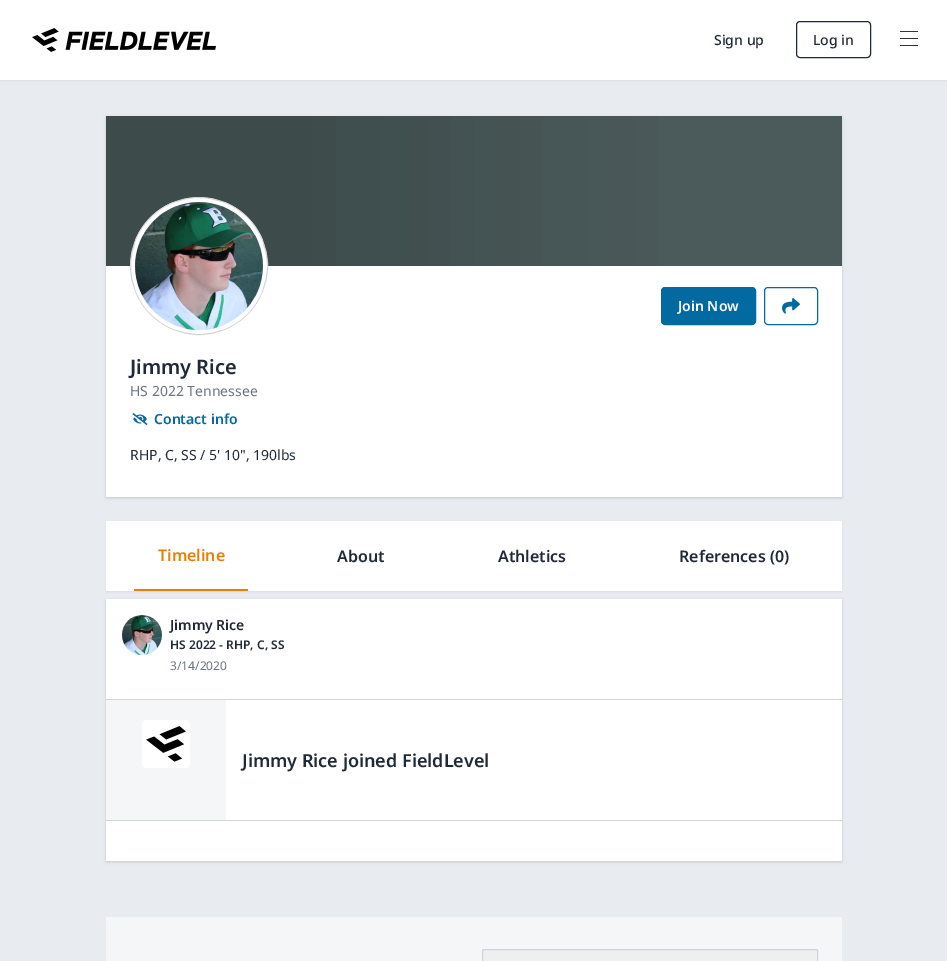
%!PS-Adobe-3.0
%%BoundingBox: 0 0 947 961
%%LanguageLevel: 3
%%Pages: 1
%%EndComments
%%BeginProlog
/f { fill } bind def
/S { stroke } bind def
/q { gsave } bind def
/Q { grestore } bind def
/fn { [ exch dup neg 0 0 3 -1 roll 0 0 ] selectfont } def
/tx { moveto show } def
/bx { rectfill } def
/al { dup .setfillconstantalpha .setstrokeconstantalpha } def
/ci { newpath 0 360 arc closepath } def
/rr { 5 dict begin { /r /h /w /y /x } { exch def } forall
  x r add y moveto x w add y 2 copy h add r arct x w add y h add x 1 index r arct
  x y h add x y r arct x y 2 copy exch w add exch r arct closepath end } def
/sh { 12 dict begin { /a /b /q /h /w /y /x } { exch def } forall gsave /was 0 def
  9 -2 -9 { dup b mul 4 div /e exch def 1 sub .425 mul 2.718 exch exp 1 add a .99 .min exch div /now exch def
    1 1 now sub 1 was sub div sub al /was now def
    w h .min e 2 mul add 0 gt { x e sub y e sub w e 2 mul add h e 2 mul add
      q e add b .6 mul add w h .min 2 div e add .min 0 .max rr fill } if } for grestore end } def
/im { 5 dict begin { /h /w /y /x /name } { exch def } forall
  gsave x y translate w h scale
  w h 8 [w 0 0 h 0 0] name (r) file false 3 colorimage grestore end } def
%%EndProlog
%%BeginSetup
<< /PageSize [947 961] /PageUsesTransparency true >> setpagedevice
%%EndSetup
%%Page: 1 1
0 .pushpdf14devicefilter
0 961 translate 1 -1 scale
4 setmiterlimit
0.91 0.922 0.937 setrgbcolor
0 0 947 961 bx
0 setgray
0 1 947 80 0 1 0.05 sh
1 setgray
0 0 947 80 bx
(image0.raw) 32 28 184 24 im
/NotoSans-Medium 14 fn
0.122 0.161 0.216 setrgbcolor
(Sign up) 714 45 tx
796.5 21.5 74 36 3.5 rr S
(Log in) 813 45 tx
(image1.raw) 900 31 18 15 im
0 setgray
107 118 734 379 0 1 0.1 sh
106 117 736 381 0 1.5 0.1 sh
1 setgray
106 116 736 381 bx
(image2.raw) 106 116 736 150 im
199 266 68.5 ci q f Q
0.82 0.835 0.859 setrgbcolor
S
(image3.raw) 135 202 128 128 im
0.012 0.412 0.631 setrgbcolor
661.5 287.5 94 37 3.5 rr q f Q
S
/NotoSans-SemiBold 14 fn
1 setgray
(Join Now) 678 311 tx
0.012 0.412 0.631 setrgbcolor
764.5 287.5 53 37 3.5 rr S
(image4.raw) 782 298 18 16 im
/NotoSans-SemiBold 20 fn
0.122 0.161 0.216 setrgbcolor
(Jimmy Rice) 130 374 tx
/NotoSans-Regular 14 fn
0.42 0.447 0.502 setrgbcolor
(HS 2022 Tennessee) 130 396 tx
(image5.raw) 132 413 16 12 im
/NotoSans-SemiBold 14 fn
0.012 0.412 0.631 setrgbcolor
(Contact info) 154 424 tx
/NotoSans-Regular 14 fn
0.122 0.161 0.216 setrgbcolor
(RHP, C, SS / 5' 10", 190lbs) 130 460 tx
0 setgray
106 522 736 70 0 1 0.05 sh
1 setgray
106 521 736 70 bx
0.914 0.494 0.024 setrgbcolor
134 589 114 2 bx
/NotoSans-SemiBold 16 fn
(Timeline) 158 561 tx
0.122 0.161 0.216 setrgbcolor
(About) 337 562 tx
(Athletics) 498 562 tx
(References \(0\)) 679 562 tx
0 setgray
107 601 734 260 0 1 0.1 sh
106 600 736 262 0 1.5 0.1 sh
1 setgray
106 599 736 262 bx
(image6.raw) 122 615 40 40 im
/NotoSans-SemiBold 14 fn
0.122 0.161 0.216 setrgbcolor
(Jimmy Rice) 170 630 tx
/NotoSans-SemiBold 12 fn
(HS 2022 - RHP, C, SS) 170 649 tx
/NotoSans-Regular 12 fn
0.42 0.447 0.502 setrgbcolor
(3/14/2020) 170 670 tx
0.82 0.835 0.859 setrgbcolor
106 699 736 1 bx
106 820 736 1 bx
0.957 0.965 0.969 setrgbcolor
106 700 120 120 bx
1 setgray
142 720 48 48 4 rr f
(image7.raw) 146 726 40 36 im
/NotoSans-SemiBold 18 fn
0.122 0.161 0.216 setrgbcolor
(Jimmy Rice joined FieldLevel) 242 767 tx
0.957 0.965 0.969 setrgbcolor
106 917 736 44 bx
0.937 setgray
482.5 949.5 335 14 1.5 rr q f Q
0.82 0.835 0.859 setrgbcolor
S
.poppdf14devicefilter showpage
%%EOF
